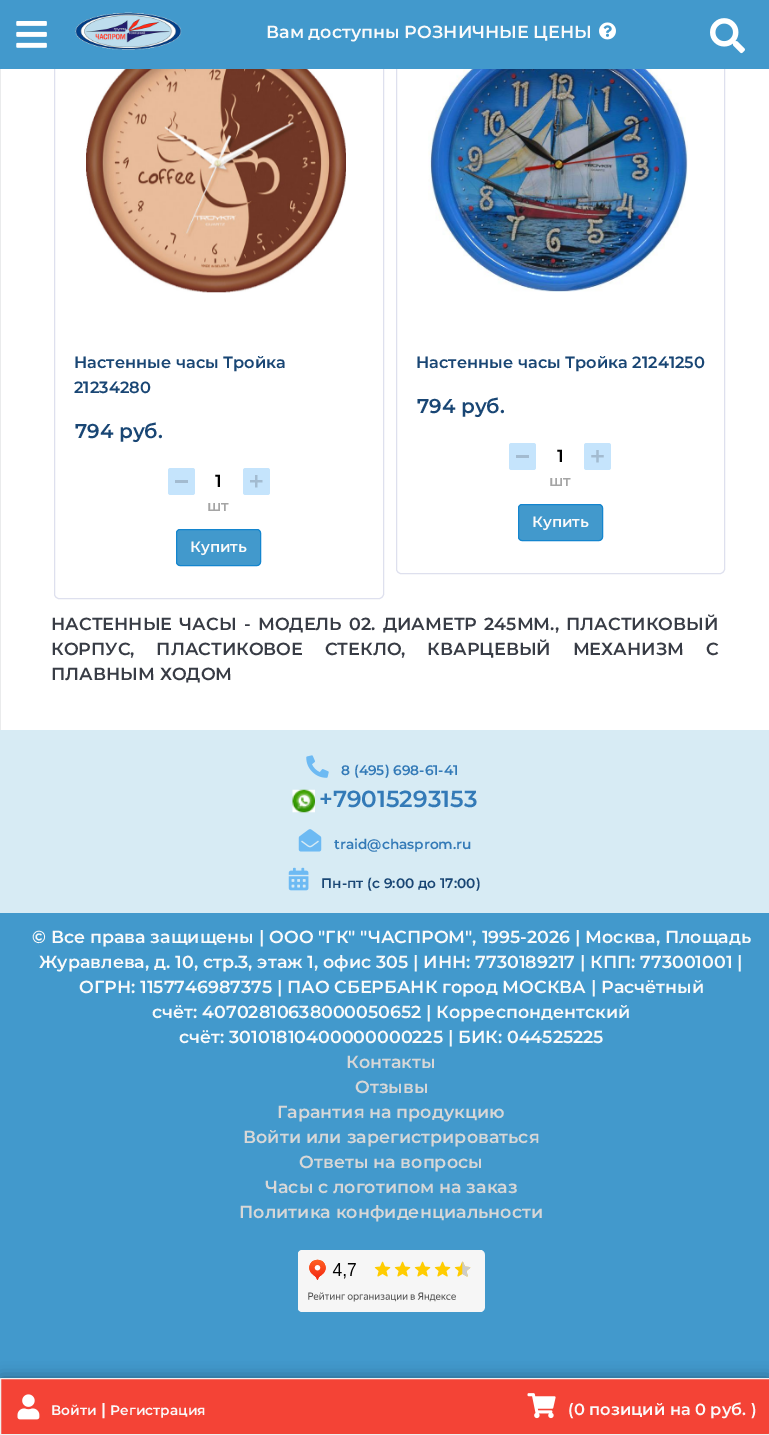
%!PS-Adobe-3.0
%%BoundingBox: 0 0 769 1435
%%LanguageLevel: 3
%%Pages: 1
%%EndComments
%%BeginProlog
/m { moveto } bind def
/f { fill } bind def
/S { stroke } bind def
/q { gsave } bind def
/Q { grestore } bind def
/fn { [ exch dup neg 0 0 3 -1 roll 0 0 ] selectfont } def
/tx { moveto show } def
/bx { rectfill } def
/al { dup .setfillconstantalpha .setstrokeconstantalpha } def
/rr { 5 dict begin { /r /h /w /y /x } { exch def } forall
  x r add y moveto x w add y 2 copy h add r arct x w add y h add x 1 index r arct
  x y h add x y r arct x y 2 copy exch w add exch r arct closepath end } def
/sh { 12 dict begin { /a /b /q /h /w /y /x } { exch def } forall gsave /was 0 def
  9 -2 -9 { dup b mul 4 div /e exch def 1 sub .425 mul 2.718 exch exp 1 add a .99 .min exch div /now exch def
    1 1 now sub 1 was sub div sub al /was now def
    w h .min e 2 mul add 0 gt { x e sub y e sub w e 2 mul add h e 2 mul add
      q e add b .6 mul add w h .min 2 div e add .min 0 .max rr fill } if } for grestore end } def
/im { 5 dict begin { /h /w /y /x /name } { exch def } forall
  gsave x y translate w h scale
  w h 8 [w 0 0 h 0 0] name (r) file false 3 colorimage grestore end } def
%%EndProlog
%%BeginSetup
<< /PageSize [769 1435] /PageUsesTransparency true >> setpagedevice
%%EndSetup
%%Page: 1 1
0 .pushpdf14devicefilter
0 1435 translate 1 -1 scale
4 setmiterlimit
1 setgray
0 0 769 1435 bx
0.871 0.878 0.933 setrgbcolor
54.5 -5.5 329 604 4.5 rr S
396.5 -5.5 328 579 4.5 rr S
0.259 0.6 0.8 setrgbcolor
0 0 769 69 bx
(image0.raw) 16 21 31 27 im
(image1.raw) 75 12 107 38 im
/Montserrat-SemiBold 17.5 fn
0.98 setgray
(Вам доступны РОЗНИЧНЫЕ ЦЕНЫ) 266 38 tx
(image2.raw) 599 22 17 18 im
(image3.raw) 710 18 35 36 im
0.918 0.922 0.925 setrgbcolor
0 69 1 661 bx
(image4.raw) 86 69 260 224 im
/Montserrat-SemiBold 16.25 fn
0.098 0.275 0.455 setrgbcolor
(Настенные часы Тройка) 74 368 tx
(21234280) 74 393 tx
/Montserrat-SemiBold 20 fn
(794 руб.) 75 438 tx
0.773 0.894 0.988 setrgbcolor
168 468 27 27 2.5 rr f
0.639 0.733 0.816 setrgbcolor
175 480 13 3 bx
/Montserrat-SemiBold 17.5 fn
0 setgray
(1) 215 487 tx
0.773 0.894 0.988 setrgbcolor
243 468 27 27 2.5 rr f
(image5.raw) 250 475 13 13 im
/Montserrat-SemiBold 15 fn
0.647 setgray
(шт) 207 511 tx
0.259 0.6 0.8 setrgbcolor
176.5 529.5 84 36 3.5 rr q f Q
0.078 0.522 0.808 setrgbcolor
S
0.98 setgray
(Купить) 190 552 tx
(image6.raw) 428 69 260 223 im
/Montserrat-SemiBold 16.25 fn
0.098 0.275 0.455 setrgbcolor
(Настенные часы Тройка 21241250) 416 368 tx
/Montserrat-SemiBold 20 fn
(794 руб.) 417 413 tx
0.773 0.894 0.988 setrgbcolor
509 443 27 27 2.5 rr f
0.639 0.733 0.816 setrgbcolor
516 455 13 3 bx
/Montserrat-SemiBold 17.5 fn
0 setgray
(1) 557 462 tx
0.773 0.894 0.988 setrgbcolor
584 443 27 27 2.5 rr f
(image7.raw) 591 450 13 13 im
/Montserrat-SemiBold 15 fn
0.647 setgray
(шт) 549 486 tx
0.259 0.6 0.8 setrgbcolor
518.5 504.5 84 36 3.5 rr q f Q
0.078 0.522 0.808 setrgbcolor
S
0.98 setgray
(Купить) 532 527 tx
/Montserrat-SemiBold 17.5 fn
0.22 0.235 0.271 setrgbcolor
51 630 m 2.5 0 32 (НАСТЕННЫЕ ЧАСЫ - МОДЕЛЬ 02. ДИАМЕТР 245ММ., ПЛАСТИКОВЫЙ) widthshow
51 655 m 17 0 32 (КОРПУС, ПЛАСТИКОВОЕ СТЕКЛО, КВАРЦЕВЫЙ МЕХАНИЗМ С) widthshow
(ПЛАВНЫМ ХОДОМ) 51 680 tx
0.843 0.922 0.957 setrgbcolor
0 730 769 183 bx
(image8.raw) 306 755 23 23 im
/Montserrat-SemiBold 13.75 fn
0.2 0.478 0.718 setrgbcolor
(8 \(495\) 698-61-41) 341 775 tx
(image9.raw) 292 789 23 24 im
/Montserrat-SemiBold 23.25 fn
(+79015293153) 319 807 tx
(image10.raw) 298 829 24 23 im
/Montserrat-SemiBold 13.75 fn
(traid@chasprom.ru) 334 849 tx
(image11.raw) 288 867 21 24 im
0.098 0.275 0.455 setrgbcolor
(Пн-пт \(с 9:00 до 17:00\)) 321 888 tx
0.259 0.6 0.8 setrgbcolor
0 913 769 466 bx
/Montserrat-SemiBold 17.5 fn
0.98 setgray
(© Все права защищены | ООО "ГК" "ЧАСПРОМ", 1995-2026 | Москва, Площадь) 32 943 tx
(Журавлева, д. 10, стр.3, этаж 1, офис 305 | ИНН: 7730189217 | КПП: 773001001 |) 39 968 tx
(ОГРН: 1157746987375 | ПАО СБЕРБАНК город МОСКВА | Расчётный) 79 993 tx
(счёт: 40702810638000050652 | Корреспондентский) 152 1018 tx
(счёт: 30101810400000000225 | БИК: 044525225) 179 1043 tx
0.843 setgray
(Контакты) 346 1068 tx
(Отзывы) 355 1093 tx
(Гарантия на продукцию) 277 1118 tx
(Войти или зарегистрироваться) 243 1143 tx
(Ответы на вопросы) 299 1168 tx
(Часы с логотипом на заказ) 265 1193 tx
(Политика конфиденциальности) 239 1218 tx
(image12.raw) 298 1250 187 62 im
0 setgray
0 1378 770 57 1 7.5 0.36 sh
0.957 0.263 0.212 setrgbcolor
0.5 1378.5 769 56 0.5 rr q f Q
0.941 setgray
S
(image13.raw) 17 1394 23 26 im
/Montserrat-SemiBold 13.75 fn
0.98 setgray
(Войти) 51 1415 tx
/Montserrat-SemiBold 16.25 fn
(|) 101 1415 tx
/Montserrat-SemiBold 13.75 fn
(Регистрация) 110 1415 tx
(image14.raw) 527 1393 29 26 im
/Montserrat-SemiBold 16.25 fn
(\(0 позиций на 0 руб. \)) 568 1415 tx
.poppdf14devicefilter showpage
%%EOF
